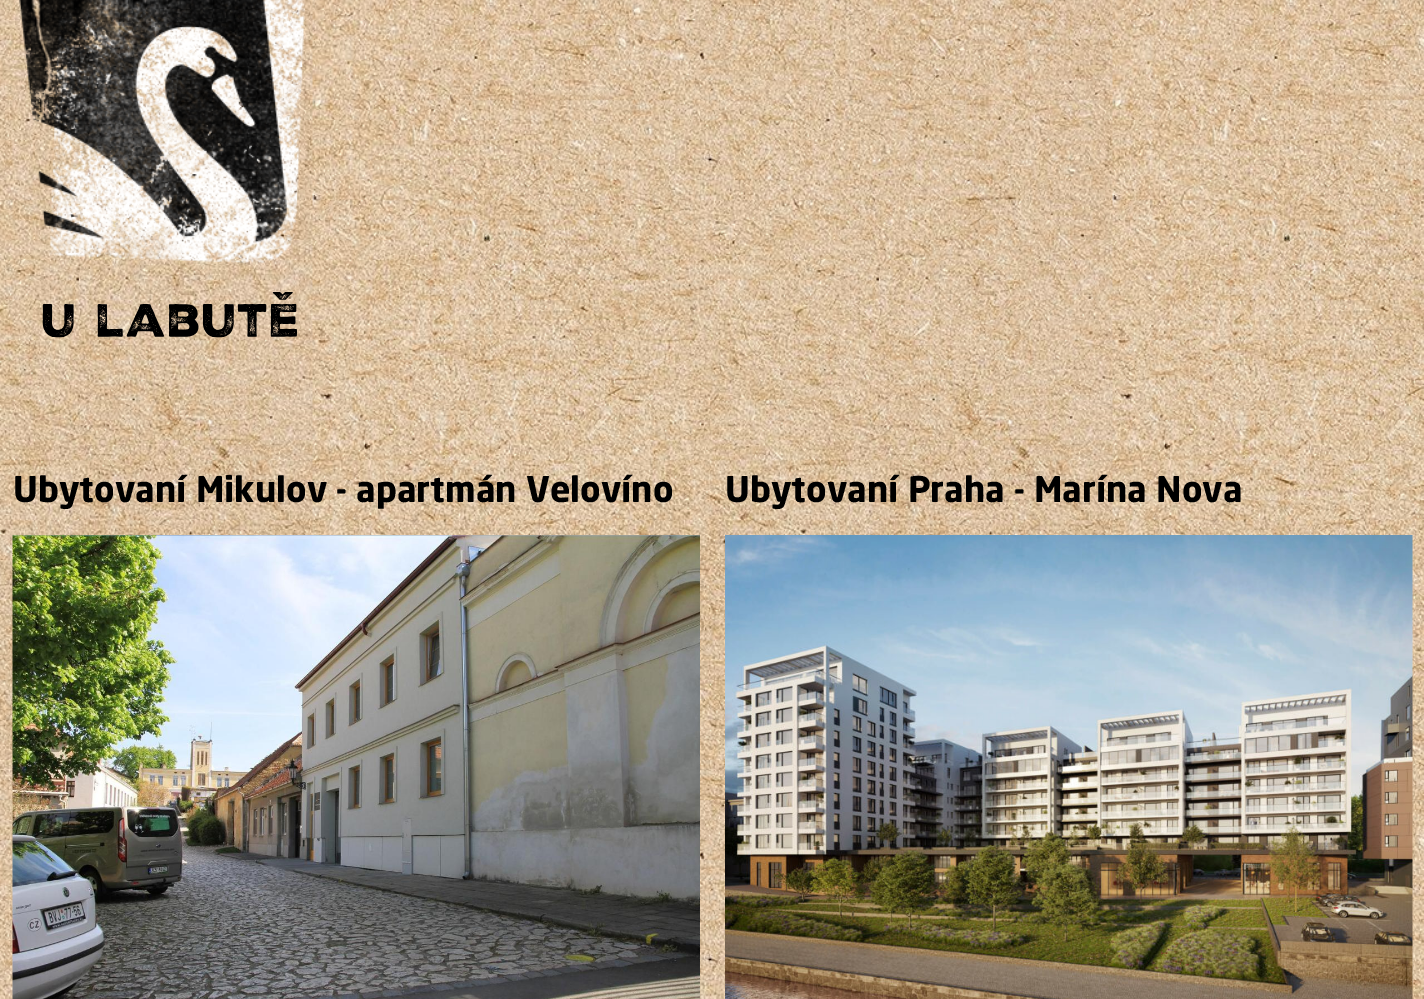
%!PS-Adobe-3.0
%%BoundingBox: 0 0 1424 999
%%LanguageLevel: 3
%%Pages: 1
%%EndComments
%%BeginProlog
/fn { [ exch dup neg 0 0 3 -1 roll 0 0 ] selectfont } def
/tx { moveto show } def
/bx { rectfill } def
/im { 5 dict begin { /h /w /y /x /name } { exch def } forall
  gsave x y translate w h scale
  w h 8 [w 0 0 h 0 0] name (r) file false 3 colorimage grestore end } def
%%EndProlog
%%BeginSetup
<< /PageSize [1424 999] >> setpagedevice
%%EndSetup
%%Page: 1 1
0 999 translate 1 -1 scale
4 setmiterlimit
1 setgray
0 0 1424 999 bx
(image0.raw) 0 0 1424 999 im
(image1.raw) 19 0 286 338 im
/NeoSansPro-Bold 35 fn
0 setgray
(Ubytovaní Mikulov - apartmán Velovíno) 13 502 tx
(image2.raw) 12 535 688 464 im
(Ubytovaní Praha - Marína Nova) 725 502 tx
(image3.raw) 725 535 688 464 im
showpage
%%EOF
